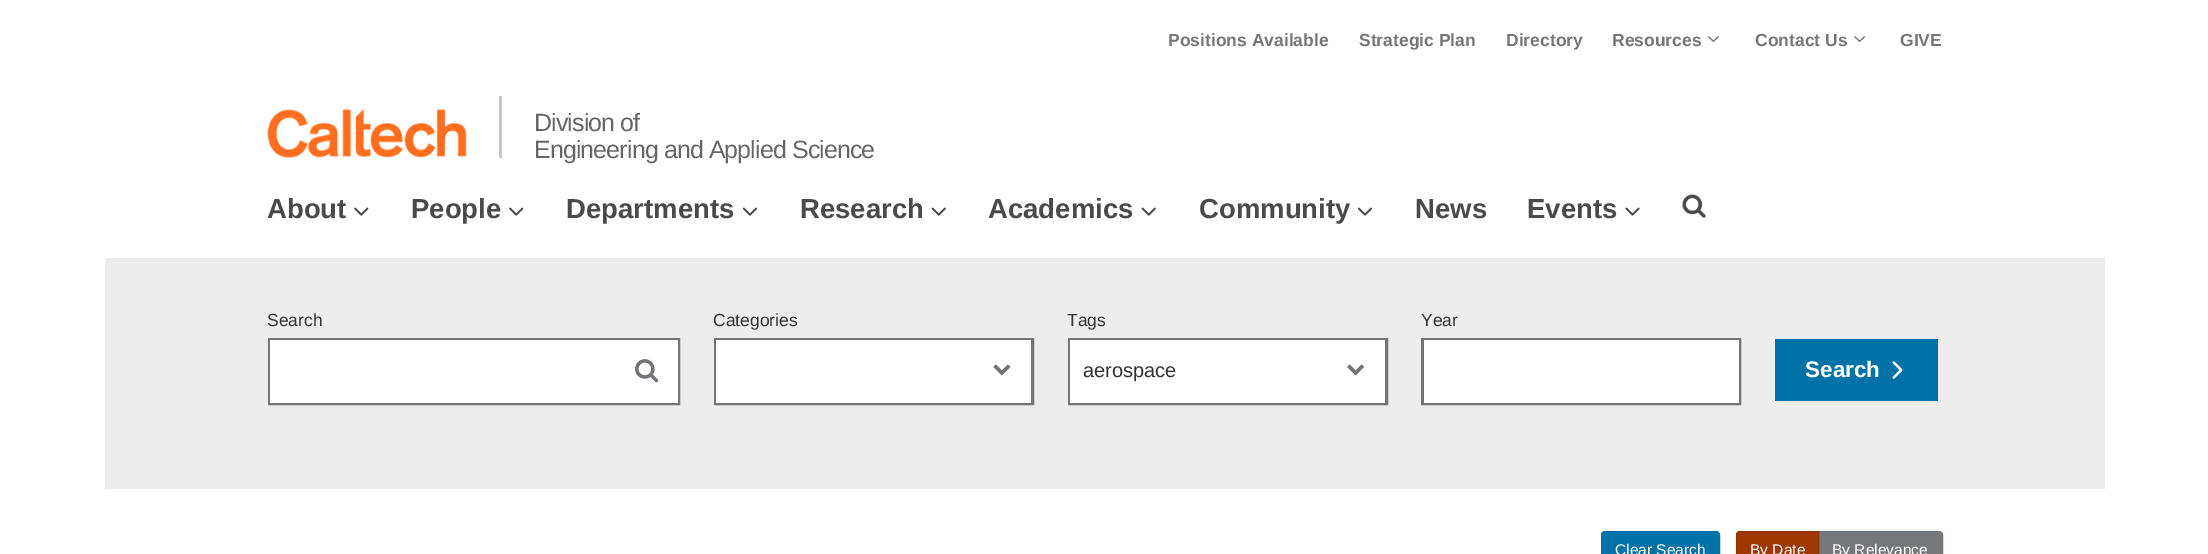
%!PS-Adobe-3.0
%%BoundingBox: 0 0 2208 554
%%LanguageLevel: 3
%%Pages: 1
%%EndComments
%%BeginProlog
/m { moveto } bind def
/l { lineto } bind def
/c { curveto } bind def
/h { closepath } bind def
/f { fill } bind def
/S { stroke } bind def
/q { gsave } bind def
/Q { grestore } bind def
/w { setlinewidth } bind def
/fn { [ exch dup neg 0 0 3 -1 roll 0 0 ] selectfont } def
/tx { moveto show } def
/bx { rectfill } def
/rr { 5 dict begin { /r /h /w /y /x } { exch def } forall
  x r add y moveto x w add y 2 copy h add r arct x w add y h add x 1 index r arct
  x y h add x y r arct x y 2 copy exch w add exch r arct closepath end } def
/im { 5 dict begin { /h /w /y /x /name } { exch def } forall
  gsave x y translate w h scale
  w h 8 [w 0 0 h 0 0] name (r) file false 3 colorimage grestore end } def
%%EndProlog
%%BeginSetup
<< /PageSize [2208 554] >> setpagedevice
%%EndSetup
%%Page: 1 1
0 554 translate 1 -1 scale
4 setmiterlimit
1 setgray
0 0 2208 554 bx
/LiberationSans-Bold 17.5 fn
0.463 setgray
(Positions Available) 1168 46 tx
(Strategic Plan) 1359 46 tx
(Directory) 1506 46 tx
(Resources) 1612 46 tx
(image0.raw) 1707 36 12 7 im
(Contact Us) 1755 46 tx
(image1.raw) 1854 36 12 7 im
(GIVE) 1900 46 tx
(image2.raw) 267 108 200 50 im
0.784 setgray
499 96 3 62 bx
/LiberationSans-Regular 25 fn
0.4 setgray
534 131 m -0.9 0 (Division of) ashow
534 158 m -0.9 0 (Engineering and Applied Science) ashow
/LiberationSans-Bold 27.5 fn
0.29 setgray
(About) 267 218 tx
(image3.raw) 354 207 15 9 im
(People) 411 218 tx
(image3.raw) 509 207 15 9 im
(Departments) 566 218 tx
(image4.raw) 742 207 16 9 im
(Research) 800 218 tx
(image5.raw) 931 207 15 9 im
(Academics) 988 218 tx
(image5.raw) 1141 207 15 9 im
(Community) 1199 218 tx
(image4.raw) 1357 207 16 9 im
(News) 1415 218 tx
(Events) 1527 218 tx
(image6.raw) 1625 207 15 9 im
(image7.raw) 1682 194 24 24 im
0.929 setgray
105 258 2000 231 bx
/LiberationSans-Regular 17.5 fn
0.2 setgray
(Search) 267 326 tx
0.451 0.455 0.471 setrgbcolor
3 w
269.5 339.5 409 64 rectstroke
1 setgray
270 340 408 63 bx
(image8.raw) 635 359 24 24 im
0.2 setgray
(Categories) 713 326 tx
0.451 0.455 0.471 setrgbcolor
715.5 339.5 317 64 rectstroke
1 setgray
716 340 315 63 bx
(image9.raw) 993 364 18 12 im
0.2 setgray
(Tags) 1067 326 tx
0.451 0.455 0.471 setrgbcolor
1069.5 339.5 317 64 rectstroke
1 setgray
1070 340 315 63 bx
/LiberationSans-Regular 20 fn
0.2 setgray
(aerospace) 1083 377 tx
(image10.raw) 1347 364 17 12 im
/LiberationSans-Regular 17.5 fn
(Year) 1421 326 tx
0.451 0.455 0.471 setrgbcolor
1422.5 339.5 317 64 rectstroke
1 setgray
1424 340 315 63 bx
0 0.447 0.659 setrgbcolor
1775 339 163 62 bx
/LiberationSans-Bold 22.5 fn
1 setgray
(Search) 1805 377 tx
(image11.raw) 1892 361 11 18 im
0 0.447 0.659 setrgbcolor
1601.5 531.5 118 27 3.5 rr q f Q
1 w
S
/LiberationSans-Regular 15.5 fn
1 setgray
(Clear Search) 1615 555 tx
0.463 0.467 0.482 setrgbcolor
1818.5 531.5 m 1939 531.5 l 1941 531.5 1942.5 533 1942.5 535 c 1942.5 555 l 1942.5 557 1941 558.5 1939 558.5 c 1818.5 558.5 l h q f Q
0.424 0.459 0.49 setrgbcolor
S
0.62 0.216 0 setrgbcolor
1740 531.5 m 1818.5 531.5 l 1818.5 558.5 l 1740 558.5 l 1738 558.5 1736.5 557 1736.5 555 c 1736.5 535 l 1736.5 533 1738 531.5 1740 531.5 c h q f Q
0.569 0.2 0 setrgbcolor
S
1 setgray
(By Date) 1750 555 tx
(By Relevance) 1832 555 tx
showpage
%%EOF
